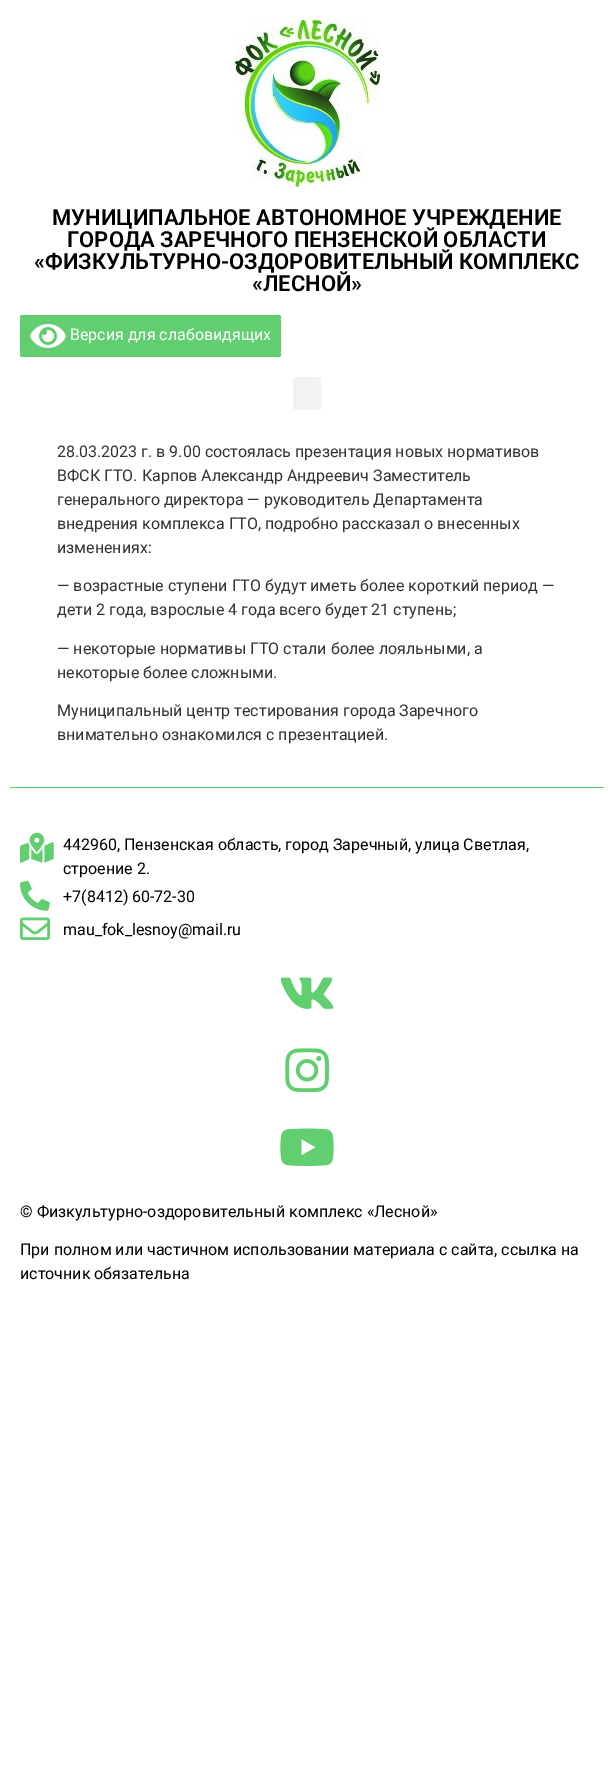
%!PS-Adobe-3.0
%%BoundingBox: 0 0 614 1792
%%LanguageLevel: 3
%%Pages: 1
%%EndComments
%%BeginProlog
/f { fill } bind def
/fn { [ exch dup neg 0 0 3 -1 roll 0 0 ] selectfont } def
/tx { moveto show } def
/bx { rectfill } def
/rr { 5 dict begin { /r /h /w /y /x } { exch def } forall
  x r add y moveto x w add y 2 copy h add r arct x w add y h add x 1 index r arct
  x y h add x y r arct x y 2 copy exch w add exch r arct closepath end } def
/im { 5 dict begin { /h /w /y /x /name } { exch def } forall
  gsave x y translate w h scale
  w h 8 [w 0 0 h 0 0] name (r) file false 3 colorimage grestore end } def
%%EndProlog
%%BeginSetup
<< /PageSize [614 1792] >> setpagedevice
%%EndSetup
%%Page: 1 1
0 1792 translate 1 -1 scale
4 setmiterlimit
1 setgray
0 0 614 1792 bx
(image0.raw) 235 20 145 167 im
/Roboto-SemiBold 22 fn
0 setgray
(МУНИЦИПАЛЬНОЕ АВТОНОМНОЕ УЧРЕЖДЕНИЕ) 52 225 tx
(ГОРОДА ЗАРЕЧНОГО ПЕНЗЕНСКОЙ ОБЛАСТИ) 67 247 tx
(«ФИЗКУЛЬТУРНО-ОЗДОРОВИТЕЛЬНЫЙ КОМПЛЕКС) 34 269 tx
(«ЛЕСНОЙ») 252 291 tx
0.38 0.808 0.439 setrgbcolor
20 315 261 42 2 rr f
(image1.raw) 30 324 36 24 im
/Roboto-Regular 16 fn
1 setgray
(Версия для слабовидящих) 70 340 tx
0.949 setgray
293 377 28 33 3 rr f
0.2 setgray
(28.03.2023 г. в 9.00 состоялась презентация новых нормативов) 57 457 tx
(ВФСК ГТО. Карпов Александр Андреевич Заместитель) 57 481 tx
(генерального директора — руководитель Департамента) 57 505 tx
(внедрения комплекса ГТО, подробно рассказал о внесенных) 57 529 tx
(изменениях:) 57 553 tx
(— возрастные ступени ГТО будут иметь более короткий период —) 57 591 tx
(дети 2 года, взрослые 4 года всего будет 21 ступень;) 57 615 tx
(— некоторые нормативы ГТО стали более лояльными, а) 57 654 tx
(некоторые более сложными.) 57 678 tx
(Муниципальный центр тестирования города Заречного) 57 716 tx
(внимательно ознакомился с презентацией.) 57 740 tx
0.38 0.808 0.439 setrgbcolor
10 787 594 1 bx
(image2.raw) 20 832 34 31 im
0 setgray
(442960, Пензенская область, город Заречный, улица Светлая,) 63 850 tx
(строение 2.) 63 874 tx
(image3.raw) 20 880 30 31 im
(+7\(8412\) 60-72-30) 63 902 tx
(image4.raw) 20 917 30 23 im
(mau_fok_lesnoy@mail.ru) 63 935 tx
(image5.raw) 280 977 54 32 im
(image6.raw) 285 1048 44 45 im
(image7.raw) 280 1128 54 38 im
(© Физкультурно-оздоровительный комплекс «Лесной») 20 1217 tx
(При полном или частичном использовании материала с сайта, ссылка на) 20 1255 tx
(источник обязательна) 20 1279 tx
showpage
%%EOF
